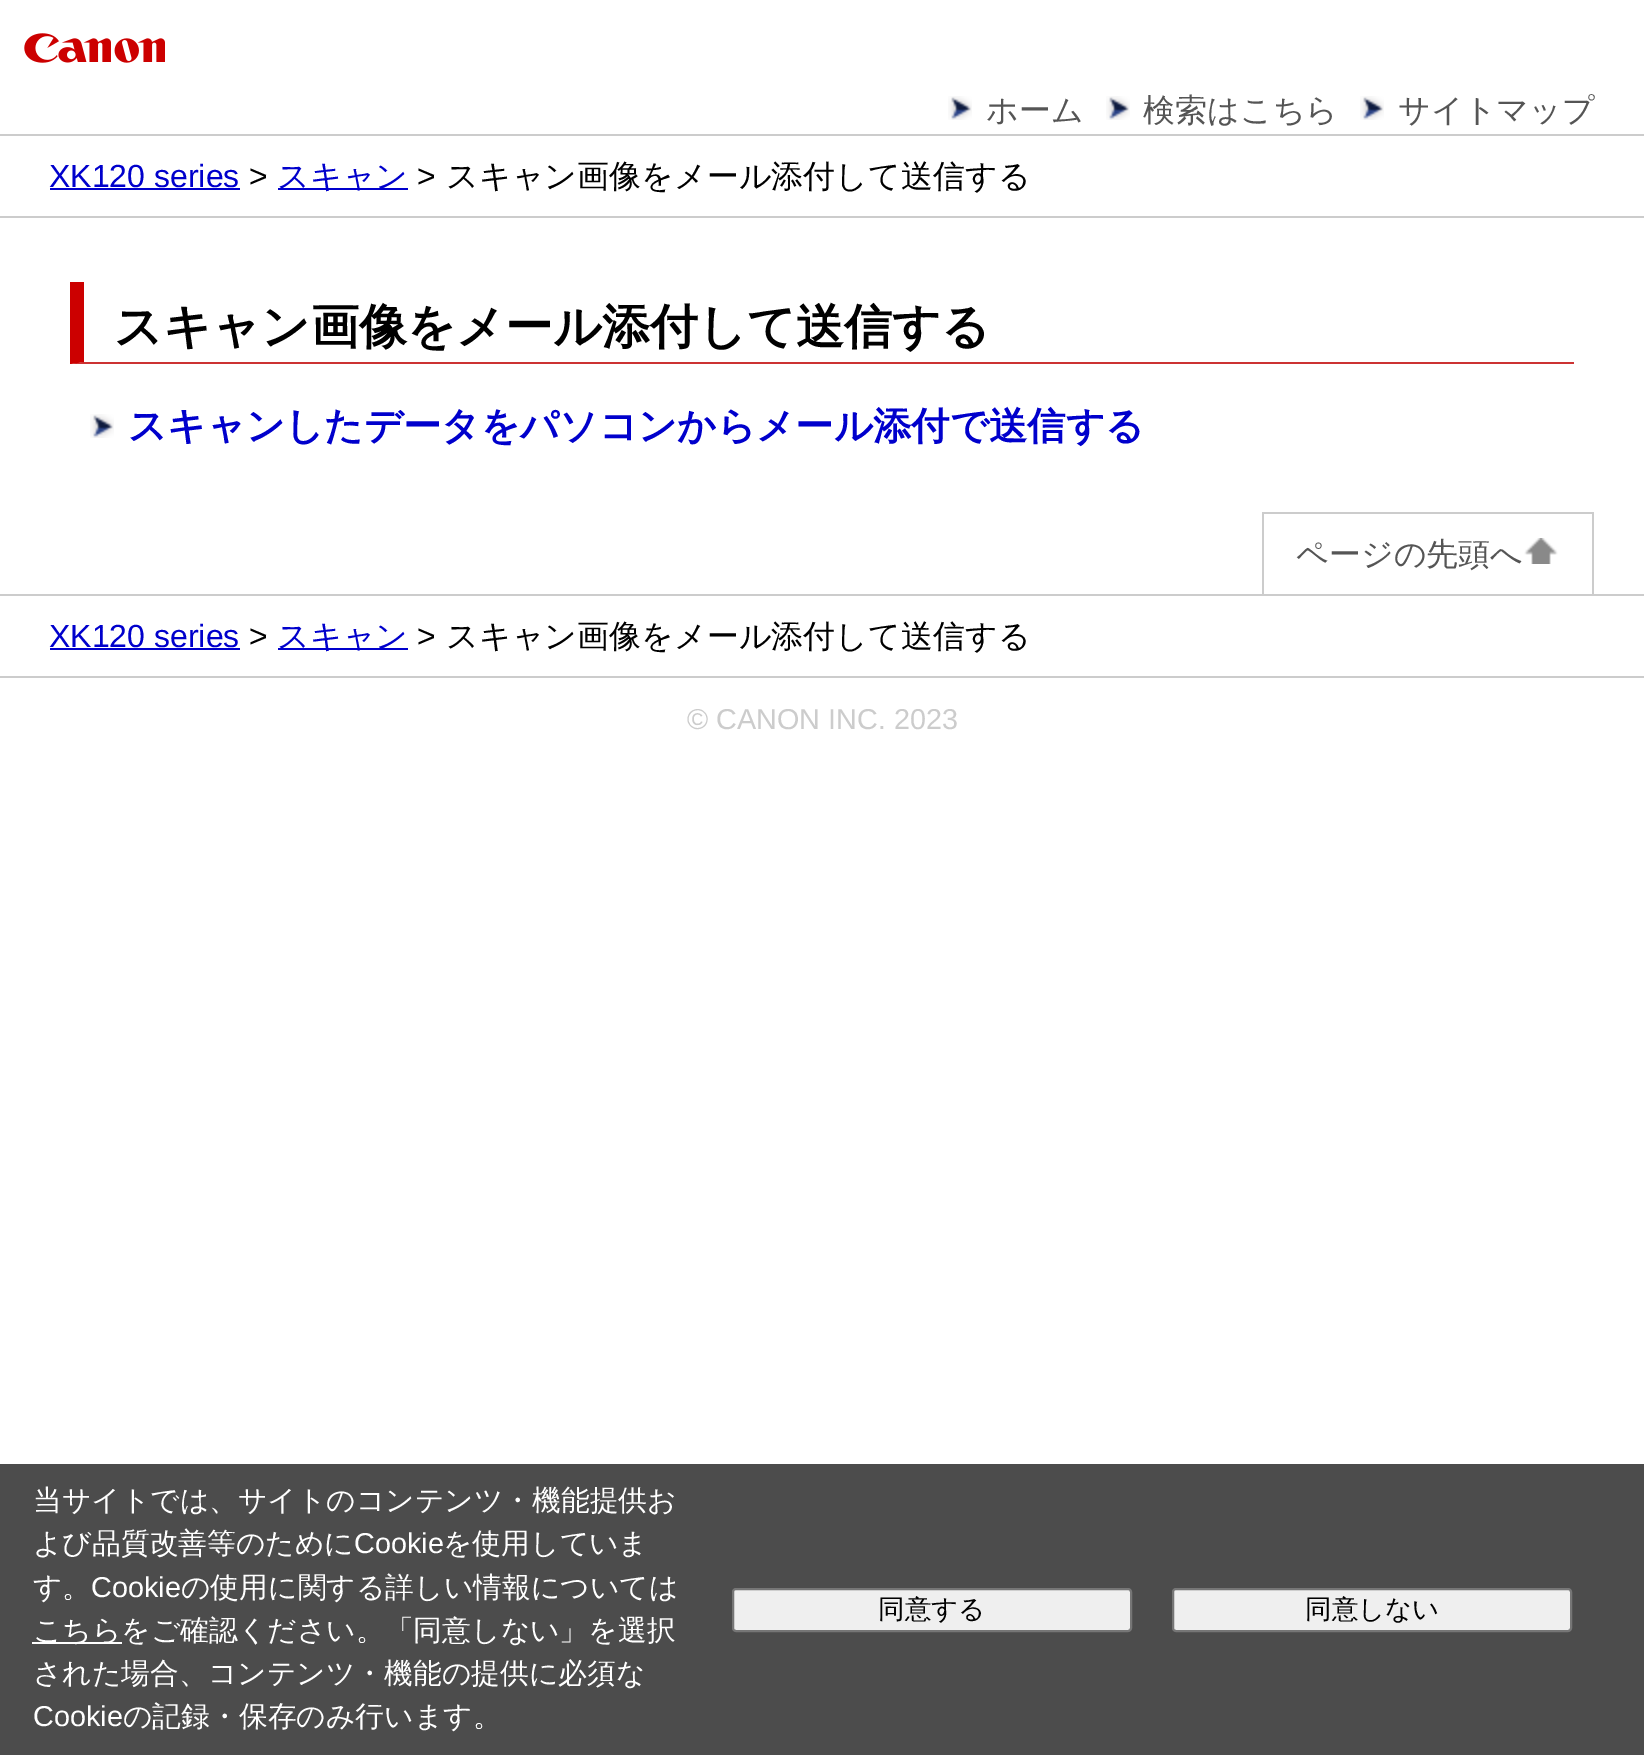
%!PS-Adobe-3.0
%%BoundingBox: 0 0 1644 1755
%%LanguageLevel: 3
%%Pages: 1
%%EndComments
%%BeginProlog
/m { moveto } bind def
/l { lineto } bind def
/h { closepath } bind def
/f { fill } bind def
/S { stroke } bind def
/q { gsave } bind def
/Q { grestore } bind def
/w { setlinewidth } bind def
/fn { [ exch dup neg 0 0 3 -1 roll 0 0 ] selectfont } def
/tx { moveto show } def
/bx { rectfill } def
/rr { 5 dict begin { /r /h /w /y /x } { exch def } forall
  x r add y moveto x w add y 2 copy h add r arct x w add y h add x 1 index r arct
  x y h add x y r arct x y 2 copy exch w add exch r arct closepath end } def
/im { 5 dict begin { /h /w /y /x /name } { exch def } forall
  gsave x y translate w h scale
  w h 8 [w 0 0 h 0 0] name (r) file false 3 colorimage grestore end } def
%%EndProlog
%%BeginSetup
<< /PageSize [1644 1755] >> setpagedevice
%%EndSetup
%%Page: 1 1
0 1755 translate 1 -1 scale
4 setmiterlimit
1 setgray
0 0 1644 1755 bx
(image0.raw) 24 33 141 30 im
0.8 setgray
0 216 1644 2 bx
(image1.raw) 948 96 24 24 im
/WenQuanYiZenHei-Medium 32 fn
0.333 setgray
(ホーム) 986 121 tx
(image1.raw) 1106 96 24 24 im
(検索はこちら) 1143 121 tx
(image1.raw) 1360 96 24 24 im
(サイトマップ) 1398 121 tx
0.8 setgray
0 134 1644 2 bx
/LiberationSans-Regular 32 fn
0 0 0.8 setrgbcolor
(XK120 series) 49 187 tx
50 188 190 2 bx
0 setgray
(>) 249 187 tx
0 0 0.8 setrgbcolor
278 188 130 2 bx
/WenQuanYiZenHei-Medium 32 fn
(スキャン) 277 187 tx
/LiberationSans-Regular 32 fn
0 setgray
(>) 417 187 tx
/WenQuanYiZenHei-Medium 32 fn
(スキャン画像をメール添付して送信する) 446 187 tx
0.8 0.2 0.2 setrgbcolor
1574 364 m 70 364 l 84 362 l 1574 362 l h f
0.8 0 0 setrgbcolor
70 364 m 70 282 l 84 282 l 84 362 l h f
/WenQuanYiZenHei-Bold 48 fn
0 setgray
(スキャン画像をメール添付して送信する) 114 343 tx
(image1.raw) 90 414 24 24 im
/WenQuanYiZenHei-Bold 38.4 fn
0 0 0.8 setrgbcolor
(スキャンしたデータをパソコンからメール添付で送信する) 128 439 tx
0.8 setgray
0 676 1644 2 bx
1262 512 332 2 bx
1592 512 2 82 bx
1262 512 2 82 bx
/WenQuanYiZenHei-Medium 32 fn
0.333 setgray
(ページの先頭へ) 1296 565 tx
(image2.raw) 1524 538 34 26 im
0.8 setgray
0 594 1644 2 bx
/LiberationSans-Regular 32 fn
0 0 0.8 setrgbcolor
(XK120 series) 49 647 tx
50 648 190 2 bx
0 setgray
(>) 249 647 tx
0 0 0.8 setrgbcolor
278 648 130 2 bx
/WenQuanYiZenHei-Medium 32 fn
(スキャン) 277 647 tx
/LiberationSans-Regular 32 fn
0 setgray
(>) 417 647 tx
/WenQuanYiZenHei-Medium 32 fn
(スキャン画像をメール添付して送信する) 446 647 tx
/LiberationSans-Regular 28.8 fn
0.8 setgray
(© CANON INC. 2023) 687 729 tx
0.298 setgray
0 1464 1644 291 bx
/WenQuanYiZenHei-Medium 28.8 fn
1 setgray
(当サイトでは、サイトのコンテンツ・機能提供お) 33 1510 tx
(よび品質改善等のために) 33 1553 tx
/LiberationSans-Regular 28.8 fn
(Cookie) 354 1553 tx
/WenQuanYiZenHei-Medium 28.8 fn
(を使用していま) 443 1553 tx
(す。) 33 1597 tx
/LiberationSans-Regular 28.8 fn
(Cookie) 91 1597 tx
/WenQuanYiZenHei-Medium 28.8 fn
(の使用に関する詳しい情報については) 181 1597 tx
32 1642 90 2 bx
(こちらをご確認ください。「同意しない」を選択) 33 1640 tx
(された場合、コンテンツ・機能の提供に必須な) 33 1683 tx
/LiberationSans-Regular 28.8 fn
(Cookie) 33 1726 tx
/WenQuanYiZenHei-Medium 28.8 fn
(の記録・保存のみ行います。) 123 1726 tx
0.937 setgray
733 1589 398 42 3 rr q f Q
0.463 setgray
2 w
S
/WenQuanYiZenHei-Medium 26.5 fn
0 setgray
(同意する) 878 1618 tx
0.937 setgray
1173 1589 398 42 3 rr q f Q
0.463 setgray
S
0 setgray
(同意しない) 1305 1618 tx
showpage
%%EOF
